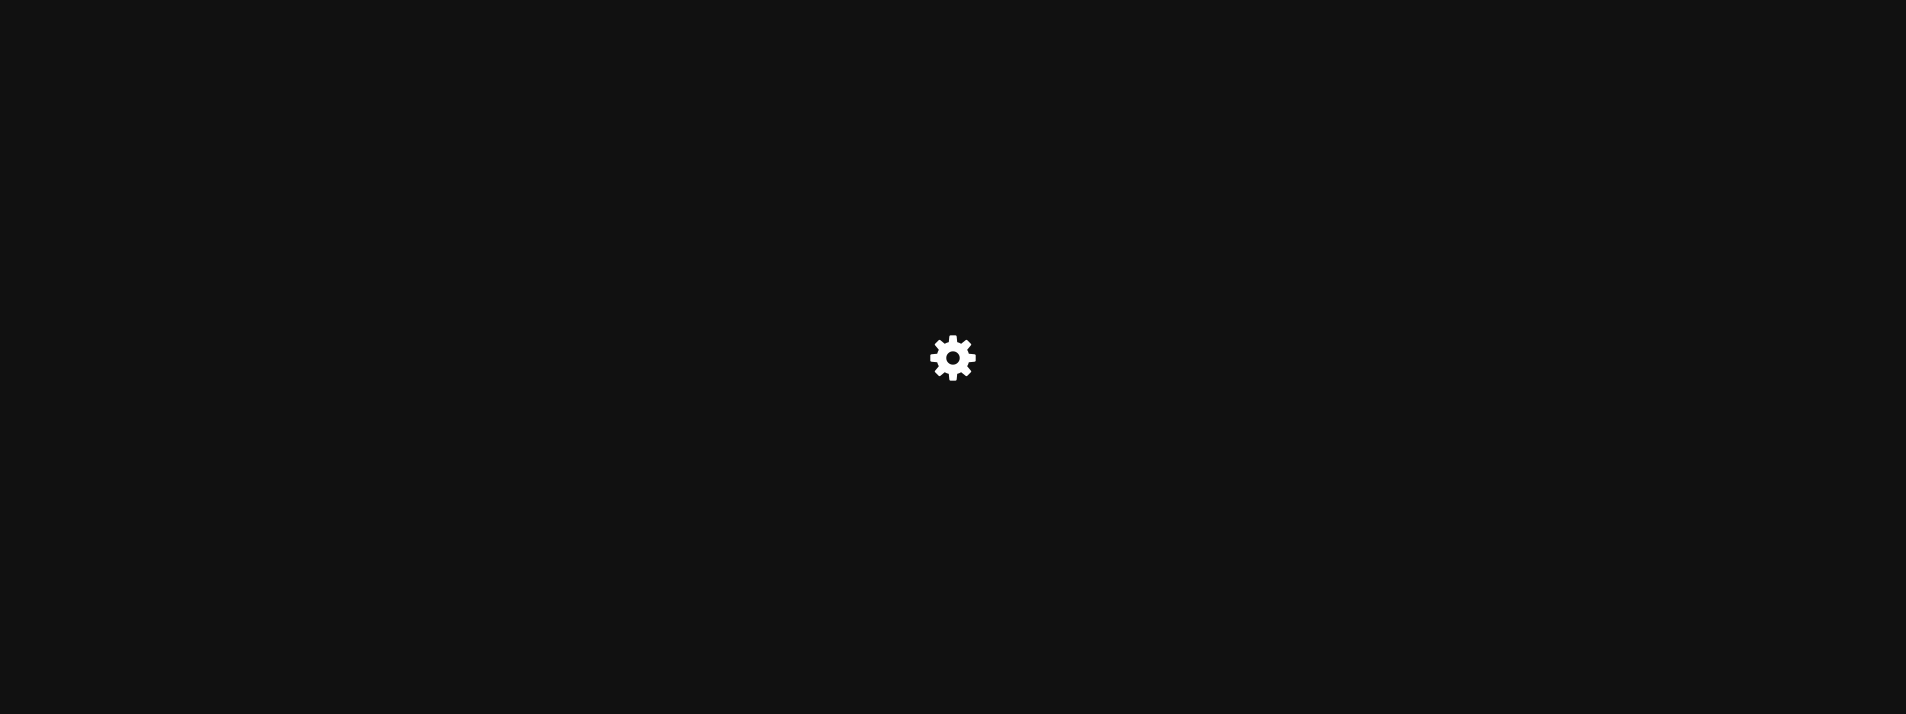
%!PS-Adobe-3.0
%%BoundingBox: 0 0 1906 714
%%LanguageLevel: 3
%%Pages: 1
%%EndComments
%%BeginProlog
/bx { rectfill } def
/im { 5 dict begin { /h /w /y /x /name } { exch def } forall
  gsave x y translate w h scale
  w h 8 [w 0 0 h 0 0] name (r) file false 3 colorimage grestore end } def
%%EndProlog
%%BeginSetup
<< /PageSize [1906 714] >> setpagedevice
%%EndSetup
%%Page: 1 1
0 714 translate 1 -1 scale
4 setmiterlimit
0.067 setgray
0 0 1906 714 bx
(image0.raw) 930 335 46 46 im
showpage
%%EOF
